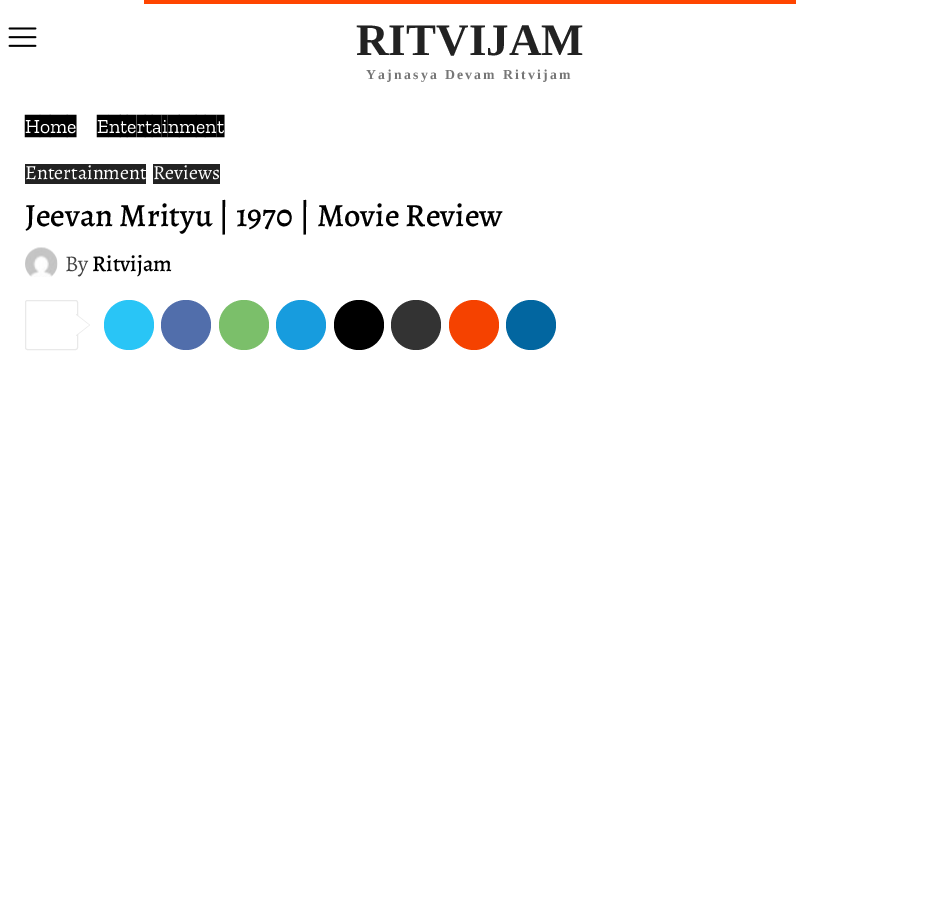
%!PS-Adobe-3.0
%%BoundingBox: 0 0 938 898
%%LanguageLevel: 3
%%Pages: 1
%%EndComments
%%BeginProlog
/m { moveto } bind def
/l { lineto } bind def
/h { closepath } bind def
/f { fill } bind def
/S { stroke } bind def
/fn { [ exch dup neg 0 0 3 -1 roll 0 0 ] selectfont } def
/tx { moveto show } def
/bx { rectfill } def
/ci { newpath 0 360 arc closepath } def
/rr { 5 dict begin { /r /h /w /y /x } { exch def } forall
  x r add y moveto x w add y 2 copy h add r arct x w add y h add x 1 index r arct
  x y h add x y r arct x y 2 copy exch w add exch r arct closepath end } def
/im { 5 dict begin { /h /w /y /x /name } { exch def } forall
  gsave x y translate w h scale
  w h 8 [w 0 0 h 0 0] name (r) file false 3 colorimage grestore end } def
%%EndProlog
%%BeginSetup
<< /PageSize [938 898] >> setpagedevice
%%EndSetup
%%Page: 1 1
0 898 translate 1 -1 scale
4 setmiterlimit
1 setgray
0 0 938 898 bx
(image0.raw) 8 27 29 20 im
1 0.271 0 setrgbcolor
144 0 652 4 bx
/LiberationSerif-Bold 45 fn
0.133 setgray
(RITVIJAM) 356 55 tx
/LiberationSerif-Bold 13.75 fn
0.463 setgray
366 79 m 2.25 0 (Yajnasya Devam Ritvijam) ashow
/ZillaSlabHighlight-Light 20 fn
0 setgray
(Home) 25 133 tx
(Entertainment) 97 133 tx
0.133 setgray
25 164 121 20 bx
/Alegreya-Regular 20 fn
1 setgray
(Entertainment) 25 179 tx
0.133 setgray
153 164 67 20 bx
1 setgray
(Reviews) 153 179 tx
/Alegreya-Medium 32.5 fn
0 setgray
(Jeevan Mrityu | 1970 | Movie Review) 25 226 tx
(image1.raw) 25 247 33 30 im
/Alegreya-Regular 22.5 fn
0.267 setgray
(By) 65 271 tx
/Alegreya-Medium 22.5 fn
0 setgray
(Ritvijam) 92 271 tx
0.914 setgray
25.5 300.5 52 49 2 rr S
76 336 m 76 314 l 90 325 l h f
1 setgray
76 335 m 76 315 l 89 325 l h f
0.161 0.773 0.965 setrgbcolor
129 325 25 ci f
0.318 0.431 0.671 setrgbcolor
186 325 25 ci f
0.482 0.749 0.416 setrgbcolor
244 325 25 ci f
0.09 0.612 0.871 setrgbcolor
301 325 25 ci f
0 setgray
359 325 25 ci f
0.2 setgray
416 325 25 ci f
0.961 0.259 0 setrgbcolor
474 325 25 ci f
0.008 0.4 0.627 setrgbcolor
531 325 25 ci f
showpage
%%EOF
